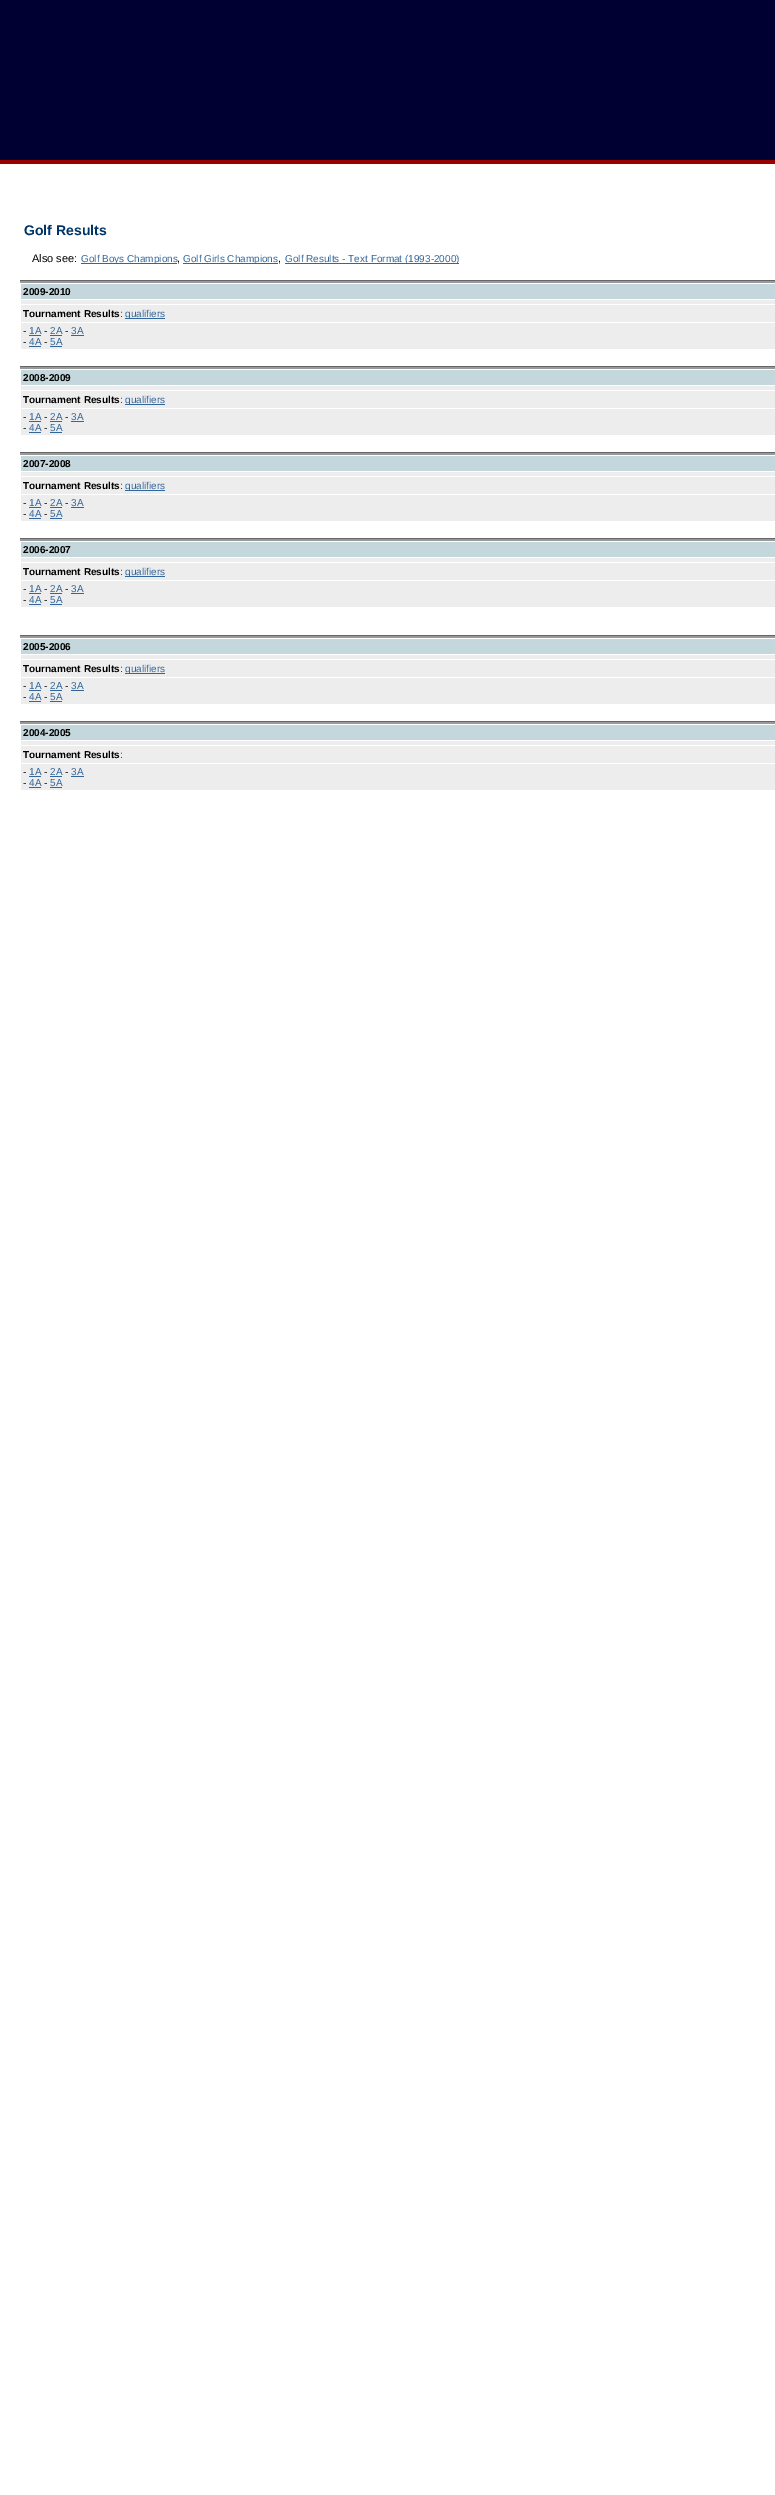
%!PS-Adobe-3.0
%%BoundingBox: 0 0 775 2495
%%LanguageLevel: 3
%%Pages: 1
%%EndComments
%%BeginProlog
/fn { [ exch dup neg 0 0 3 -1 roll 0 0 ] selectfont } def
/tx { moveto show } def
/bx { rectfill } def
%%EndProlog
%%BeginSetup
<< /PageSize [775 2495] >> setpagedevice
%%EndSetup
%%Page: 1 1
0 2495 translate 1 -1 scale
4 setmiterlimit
1 setgray
0 0 775 2495 bx
0 0 0.2 setrgbcolor
0 0 775 160 bx
0.6 0 0 setrgbcolor
0 160 775 4 bx
/LiberationSans-Bold 14 fn
0 0.2 0.4 setrgbcolor
(Golf Results) 24 235 tx
/LiberationSans-Regular 11 fn
0 setgray
(Also see:) 32 262 tx
0.2 0.4 0.6 setrgbcolor
81 263 96 1 bx
/LiberationSans-Regular 10 fn
(Golf Boys Champions) 81 262 tx
/LiberationSans-Regular 11 fn
0 setgray
(,) 177 262 tx
0.2 0.4 0.6 setrgbcolor
183 263 95 1 bx
/LiberationSans-Regular 10 fn
(Golf Girls Champions) 183 262 tx
/LiberationSans-Regular 11 fn
0 setgray
(,) 278 262 tx
0.2 0.4 0.6 setrgbcolor
285 263 174 1 bx
/LiberationSans-Regular 10 fn
(Golf Results - Text Format \(1993-2000\)) 285 262 tx
0.4 setgray
20 280 755 1 bx
0.6 setgray
20 281 755 2 bx
0.769 0.843 0.867 setrgbcolor
21 284 754 15 bx
/LiberationSans-Bold 10 fn
0 setgray
(2009-2010) 23 295 tx
0.929 setgray
21 300 754 4 bx
21 305 754 17 bx
0 setgray
(Tournament Results) 23 317 tx
/LiberationSans-Regular 10 fn
(:) 120 317 tx
0.2 0.4 0.6 setrgbcolor
125 318 40 1 bx
(qualifiers) 125 317 tx
0.929 setgray
21 323 754 26 bx
0 setgray
(-) 23 334 tx
0.2 0.4 0.6 setrgbcolor
(1A) 29 334 tx
29 335 12 1 bx
0 setgray
(-) 44 334 tx
0.2 0.4 0.6 setrgbcolor
(2A) 50 334 tx
50 335 12 1 bx
0 setgray
(-) 65 334 tx
0.2 0.4 0.6 setrgbcolor
(3A) 71 334 tx
71 335 13 1 bx
0 setgray
(-) 23 345 tx
0.2 0.4 0.6 setrgbcolor
(4A) 29 345 tx
29 346 12 1 bx
0 setgray
(-) 44 345 tx
0.2 0.4 0.6 setrgbcolor
(5A) 50 345 tx
50 346 12 1 bx
0.4 setgray
20 366 755 1 bx
0.6 setgray
20 367 755 2 bx
0.769 0.843 0.867 setrgbcolor
21 370 754 15 bx
/LiberationSans-Bold 10 fn
0 setgray
(2008-2009) 23 381 tx
0.929 setgray
21 386 754 4 bx
21 391 754 17 bx
0 setgray
(Tournament Results) 23 403 tx
/LiberationSans-Regular 10 fn
(:) 120 403 tx
0.2 0.4 0.6 setrgbcolor
125 404 40 1 bx
(qualifiers) 125 403 tx
0.929 setgray
21 409 754 26 bx
0 setgray
(-) 23 420 tx
0.2 0.4 0.6 setrgbcolor
(1A) 29 420 tx
29 421 12 1 bx
0 setgray
(-) 44 420 tx
0.2 0.4 0.6 setrgbcolor
(2A) 50 420 tx
50 421 12 1 bx
0 setgray
(-) 65 420 tx
0.2 0.4 0.6 setrgbcolor
(3A) 71 420 tx
71 421 13 1 bx
0 setgray
(-) 23 431 tx
0.2 0.4 0.6 setrgbcolor
(4A) 29 431 tx
29 432 12 1 bx
0 setgray
(-) 44 431 tx
0.2 0.4 0.6 setrgbcolor
(5A) 50 431 tx
50 432 12 1 bx
0.4 setgray
20 452 755 1 bx
0.6 setgray
20 453 755 2 bx
0.769 0.843 0.867 setrgbcolor
21 456 754 15 bx
/LiberationSans-Bold 10 fn
0 setgray
(2007-2008) 23 467 tx
0.929 setgray
21 472 754 4 bx
21 477 754 17 bx
0 setgray
(Tournament Results) 23 489 tx
/LiberationSans-Regular 10 fn
(:) 120 489 tx
0.2 0.4 0.6 setrgbcolor
125 490 40 1 bx
(qualifiers) 125 489 tx
0.929 setgray
21 495 754 26 bx
0 setgray
(-) 23 506 tx
0.2 0.4 0.6 setrgbcolor
(1A) 29 506 tx
29 507 12 1 bx
0 setgray
(-) 44 506 tx
0.2 0.4 0.6 setrgbcolor
(2A) 50 506 tx
50 507 12 1 bx
0 setgray
(-) 65 506 tx
0.2 0.4 0.6 setrgbcolor
(3A) 71 506 tx
71 507 13 1 bx
0 setgray
(-) 23 517 tx
0.2 0.4 0.6 setrgbcolor
(4A) 29 517 tx
29 518 12 1 bx
0 setgray
(-) 44 517 tx
0.2 0.4 0.6 setrgbcolor
(5A) 50 517 tx
50 518 12 1 bx
0.4 setgray
20 538 755 1 bx
0.6 setgray
20 539 755 2 bx
0.769 0.843 0.867 setrgbcolor
21 542 754 15 bx
/LiberationSans-Bold 10 fn
0 setgray
(2006-2007) 23 553 tx
0.929 setgray
21 558 754 4 bx
21 563 754 17 bx
0 setgray
(Tournament Results) 23 575 tx
/LiberationSans-Regular 10 fn
(:) 120 575 tx
0.2 0.4 0.6 setrgbcolor
125 576 40 1 bx
(qualifiers) 125 575 tx
0.929 setgray
21 581 754 26 bx
0 setgray
(-) 23 592 tx
0.2 0.4 0.6 setrgbcolor
(1A) 29 592 tx
29 593 12 1 bx
0 setgray
(-) 44 592 tx
0.2 0.4 0.6 setrgbcolor
(2A) 50 592 tx
50 593 12 1 bx
0 setgray
(-) 65 592 tx
0.2 0.4 0.6 setrgbcolor
(3A) 71 592 tx
71 593 13 1 bx
0 setgray
(-) 23 603 tx
0.2 0.4 0.6 setrgbcolor
(4A) 29 603 tx
29 604 12 1 bx
0 setgray
(-) 44 603 tx
0.2 0.4 0.6 setrgbcolor
(5A) 50 603 tx
50 604 12 1 bx
0.4 setgray
20 635 755 1 bx
0.6 setgray
20 636 755 2 bx
0.769 0.843 0.867 setrgbcolor
21 639 754 15 bx
/LiberationSans-Bold 10 fn
0 setgray
(2005-2006) 23 650 tx
0.929 setgray
21 655 754 4 bx
21 660 754 17 bx
0 setgray
(Tournament Results) 23 672 tx
/LiberationSans-Regular 10 fn
(:) 120 672 tx
0.2 0.4 0.6 setrgbcolor
125 673 40 1 bx
(qualifiers) 125 672 tx
0.929 setgray
21 678 754 26 bx
0 setgray
(-) 23 689 tx
0.2 0.4 0.6 setrgbcolor
(1A) 29 689 tx
29 690 12 1 bx
0 setgray
(-) 44 689 tx
0.2 0.4 0.6 setrgbcolor
(2A) 50 689 tx
50 690 12 1 bx
0 setgray
(-) 65 689 tx
0.2 0.4 0.6 setrgbcolor
(3A) 71 689 tx
71 690 13 1 bx
0 setgray
(-) 23 700 tx
0.2 0.4 0.6 setrgbcolor
(4A) 29 700 tx
29 701 12 1 bx
0 setgray
(-) 44 700 tx
0.2 0.4 0.6 setrgbcolor
(5A) 50 700 tx
50 701 12 1 bx
0.4 setgray
20 721 755 1 bx
0.6 setgray
20 722 755 2 bx
0.769 0.843 0.867 setrgbcolor
21 725 754 15 bx
/LiberationSans-Bold 10 fn
0 setgray
(2004-2005) 23 736 tx
0.929 setgray
21 741 754 4 bx
21 746 754 17 bx
0 setgray
(Tournament Results) 23 758 tx
/LiberationSans-Regular 10 fn
(:) 120 758 tx
0.929 setgray
21 764 754 26 bx
0 setgray
(-) 23 775 tx
0.2 0.4 0.6 setrgbcolor
(1A) 29 775 tx
29 776 12 1 bx
0 setgray
(-) 44 775 tx
0.2 0.4 0.6 setrgbcolor
(2A) 50 775 tx
50 776 12 1 bx
0 setgray
(-) 65 775 tx
0.2 0.4 0.6 setrgbcolor
(3A) 71 775 tx
71 776 13 1 bx
0 setgray
(-) 23 786 tx
0.2 0.4 0.6 setrgbcolor
(4A) 29 786 tx
29 787 12 1 bx
0 setgray
(-) 44 786 tx
0.2 0.4 0.6 setrgbcolor
(5A) 50 786 tx
50 787 12 1 bx
showpage
%%EOF
